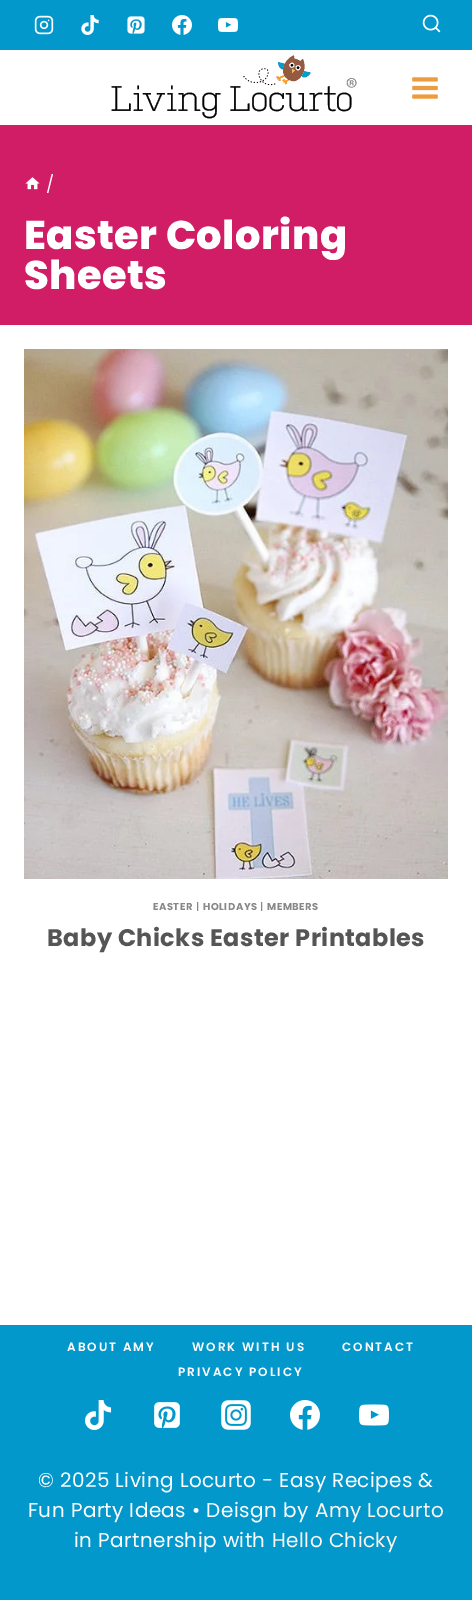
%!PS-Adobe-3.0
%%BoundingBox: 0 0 472 1600
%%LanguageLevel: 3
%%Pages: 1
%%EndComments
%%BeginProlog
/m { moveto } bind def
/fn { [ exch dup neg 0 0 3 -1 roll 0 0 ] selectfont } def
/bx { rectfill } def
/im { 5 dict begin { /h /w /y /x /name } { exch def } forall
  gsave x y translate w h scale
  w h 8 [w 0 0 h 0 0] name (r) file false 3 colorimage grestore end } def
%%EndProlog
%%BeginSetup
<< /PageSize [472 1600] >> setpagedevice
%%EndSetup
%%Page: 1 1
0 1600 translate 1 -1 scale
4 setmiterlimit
1 setgray
0 0 472 1600 bx
0.012 0.596 0.8 setrgbcolor
0 0 472 50 bx
(image0.raw) 34 15 20 20 im
(image1.raw) 81 15 18 20 im
(image2.raw) 127 16 18 18 im
(image3.raw) 172 15 20 20 im
(image4.raw) 218 18 20 14 im
(image5.raw) 422 14 19 19 im
(image6.raw) 111 55 246 64 im
(image7.raw) 412 77 26 22 im
0.82 0.11 0.4 setrgbcolor
0 125 472 200 bx
(image8.raw) 25 177 15 13 im
/Poppins-Regular 17 fn
1 setgray
46 190 m 0.4 0 (/) ashow
/Poppins-ExtraBold 40 fn
24 249 m 0.4 0 (Easter Coloring) ashow
24 289 m 0.4 0 (Sheets) ashow
(image9.raw) 24 349 424 530 im
/Poppins-Bold 10 fn
0.533 setgray
153 910 m 0.5 0 (EASTER) ashow
/Poppins-Medium 10 fn
196 910 m 0.5 0 (|) ashow
/Poppins-Bold 10 fn
203 910 m 0.5 0 (HOLIDAYS) ashow
/Poppins-Medium 10 fn
260 910 m 0.5 0 (|) ashow
/Poppins-Bold 10 fn
267 910 m 0.5 0 (MEMBERS) ashow
/Poppins-Bold 24 fn
0.333 setgray
47 946 m 0.4 0 (Baby Chicks Easter Printables) ashow
0.012 0.596 0.8 setrgbcolor
0 1325 472 275 bx
/Poppins-SemiBold 12 fn
1 setgray
67 1351 m 2 0 (ABOUT AMY) ashow
192 1351 m 2 0 (WORK WITH US) ashow
342 1351 m 2 0 (CONTACT) ashow
178 1376 m 2 0 (PRIVACY POLICY) ashow
(image10.raw) 85 1400 27 30 im
(image11.raw) 154 1402 26 26 im
(image12.raw) 221 1400 30 30 im
(image13.raw) 290 1400 30 30 im
(image14.raw) 359 1404 30 22 im
/Poppins-Regular 20 fn
38 1487 m 0.4 0 (© 2025 Living Locurto - Easy Recipes &) ashow
28 1517 m 0.4 0 (Fun Party Ideas • Deisgn by) ashow
1 0.961 0.937 setrgbcolor
315 1517 m 0.4 0 (Amy Locurto) ashow
1 setgray
74 1547 m 0.4 0 (in Partnership with) ashow
1 0.961 0.937 setrgbcolor
272 1547 m 0.4 0 (Hello Chicky) ashow
showpage
%%EOF
